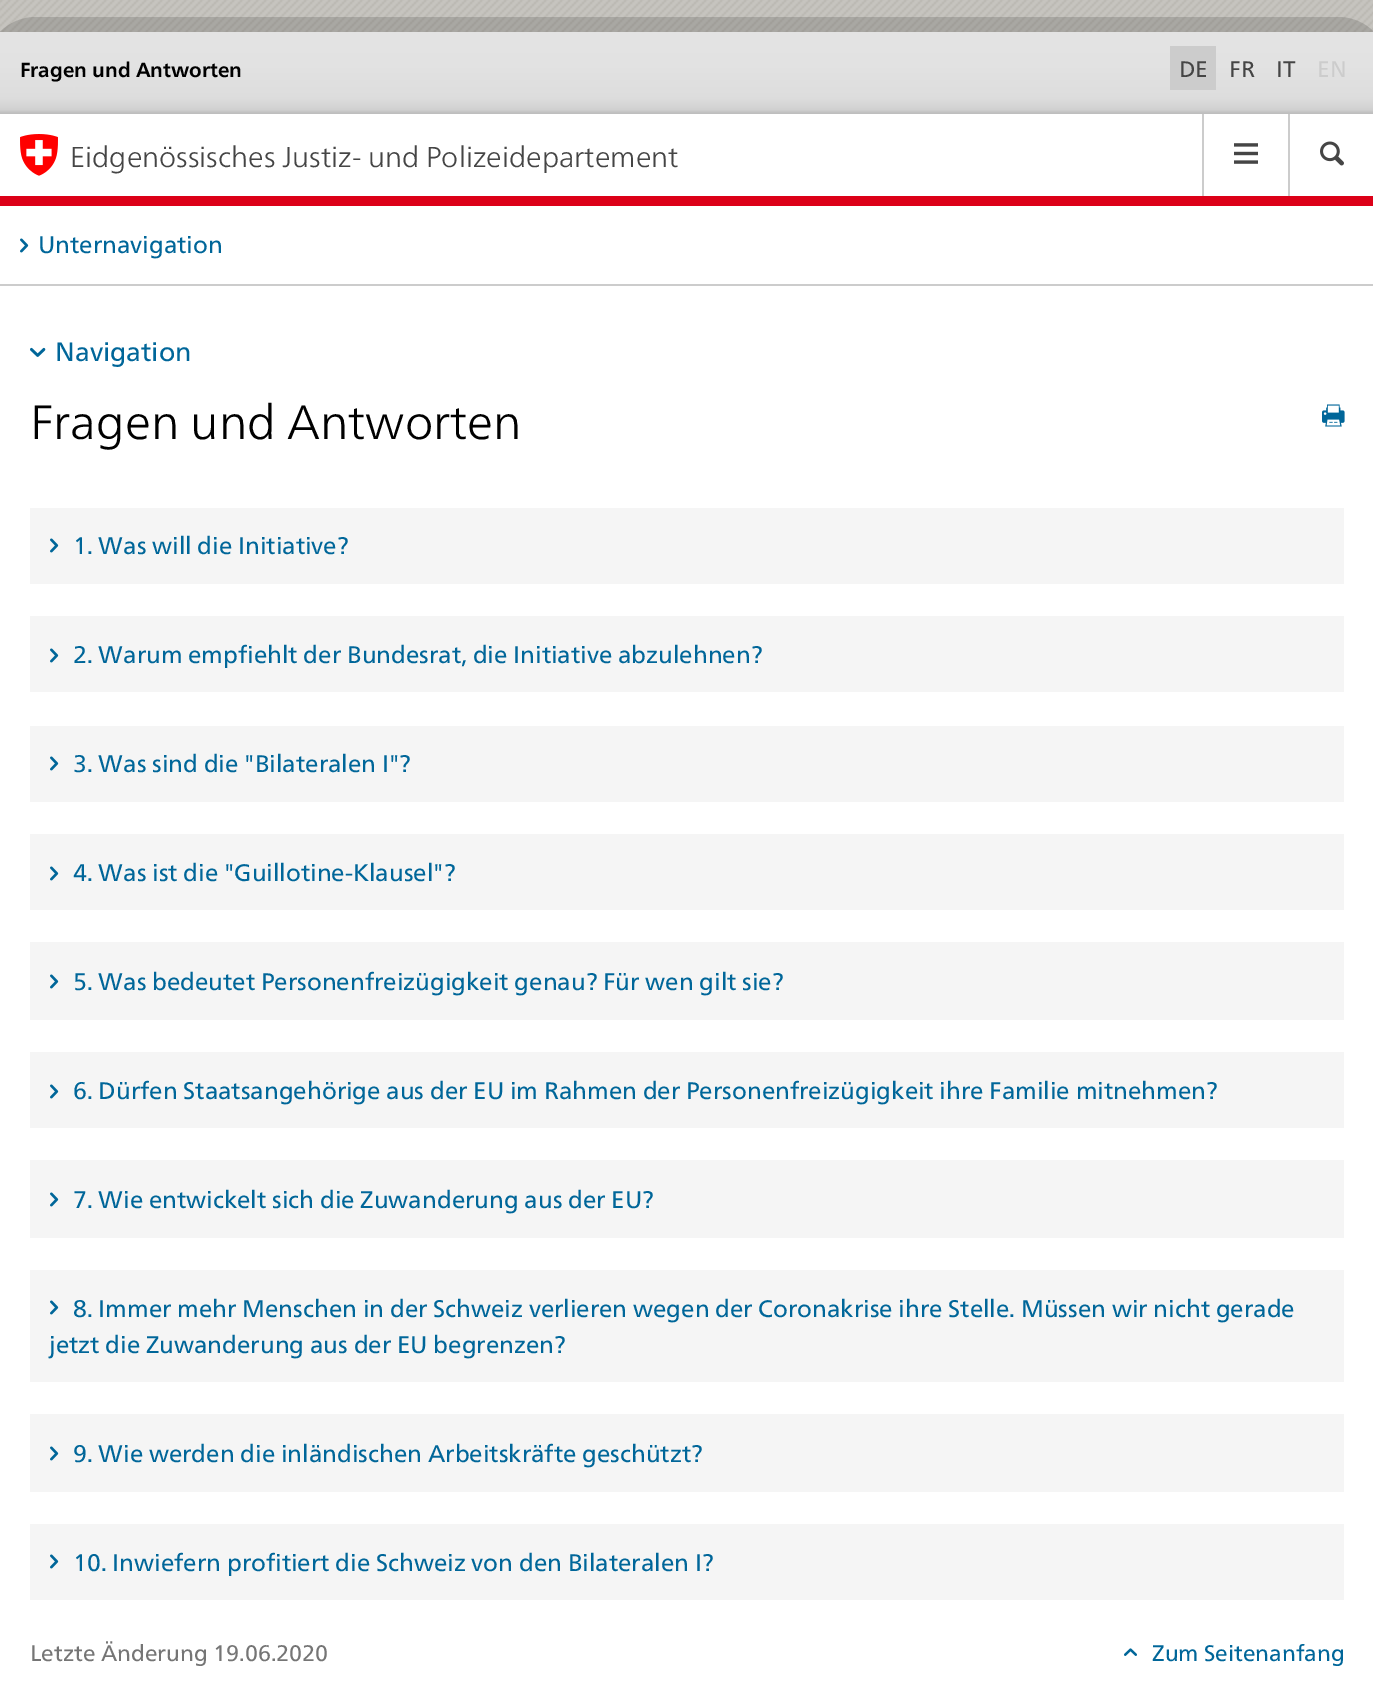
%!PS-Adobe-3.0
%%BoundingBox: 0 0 1373 1681
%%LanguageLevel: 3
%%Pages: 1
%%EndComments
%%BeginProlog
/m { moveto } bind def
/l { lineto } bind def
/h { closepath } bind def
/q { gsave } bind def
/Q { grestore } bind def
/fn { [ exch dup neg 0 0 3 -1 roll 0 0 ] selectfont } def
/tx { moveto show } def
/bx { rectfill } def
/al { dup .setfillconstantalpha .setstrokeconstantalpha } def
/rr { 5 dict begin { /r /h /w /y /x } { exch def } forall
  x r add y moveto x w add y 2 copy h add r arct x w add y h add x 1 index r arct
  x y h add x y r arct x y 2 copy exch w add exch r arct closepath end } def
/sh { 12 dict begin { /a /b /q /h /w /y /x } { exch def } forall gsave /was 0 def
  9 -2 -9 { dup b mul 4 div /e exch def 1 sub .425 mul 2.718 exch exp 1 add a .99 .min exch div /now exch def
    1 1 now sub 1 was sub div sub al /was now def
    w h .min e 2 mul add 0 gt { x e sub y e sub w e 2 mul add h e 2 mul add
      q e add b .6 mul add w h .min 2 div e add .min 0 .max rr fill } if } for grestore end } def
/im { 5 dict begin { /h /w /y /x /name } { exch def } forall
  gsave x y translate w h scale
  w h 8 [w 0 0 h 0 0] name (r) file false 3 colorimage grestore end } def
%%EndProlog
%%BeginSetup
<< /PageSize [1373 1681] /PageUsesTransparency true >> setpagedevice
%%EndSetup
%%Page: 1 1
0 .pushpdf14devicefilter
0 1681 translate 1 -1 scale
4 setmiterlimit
1 setgray
0 0 1373 1681 bx
(image0.raw) 0 0 1373 32 im
0 setgray
0 32 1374 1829 0 60 0.6 sh
1 setgray
0 114 1373 1567 bx
q 0 32 m 1373 32 l 1373 114 l 0 114 l h clip newpath
<< /ShadingType 2 /ColorSpace /DeviceRGB /Coords [687 32 687 114] /Extend [true true] /Function << /FunctionType 3 /Domain [0 1] /Functions [<< /FunctionType 2 /Domain [0 1] /C0 [0.894 0.894 0.894] /C1 [0.886 0.886 0.886] /N 1 >> << /FunctionType 2 /Domain [0 1] /C0 [0.886 0.886 0.886] /C1 [0.867 0.867 0.867] /N 1 >> << /FunctionType 2 /Domain [0 1] /C0 [0.867 0.867 0.867] /C1 [0.835 0.835 0.835] /N 1 >> << /FunctionType 2 /Domain [0 1] /C0 [0.835 0.835 0.835] /C1 [0.812 0.812 0.812] /N 1 >> << /FunctionType 2 /Domain [0 1] /C0 [0.812 0.812 0.812] /C1 [0.745 0.745 0.745] /N 1 >> << /FunctionType 2 /Domain [0 1] /C0 [0.745 0.745 0.745] /C1 [0.745 0.745 0.745] /N 1 >>] /Bounds [0.39 0.79 0.91 0.95 0.99] /Encode [0 1 0 1 0 1 0 1 0 1 0 1] >> >> shfill Q
/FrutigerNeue-Bold 20.4 fn
0 setgray
(Fragen und Antworten) 20 77 tx
0.8 setgray
1170 46 46 44 bx
/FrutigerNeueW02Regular-Regular 22.5 fn
0.271 setgray
(DE) 1179 77 tx
(FR) 1229 77 tx
(IT) 1276 77 tx
0.8 setgray
(EN) 1317 77 tx
0.863 0 0.094 setrgbcolor
0 196 1373 10 bx
(image1.raw) 20 134 38 42 im
/FrutigerNeue-Light 28.8 fn
0.271 setgray
(Eidgenössisches Justiz- und Polizeidepartement) 70 167 tx
0.8 setgray
1202 114 2 82 bx
(image2.raw) 1234 143 24 21 im
1288 114 2 82 bx
(image3.raw) 1320 141 24 25 im
0 284 1373 2 bx
(image4.raw) 20 238 9 15 im
/FrutigerNeueW02Regular-Regular 24 fn
0 0.4 0.6 setrgbcolor
(Unternavigation) 38 253 tx
(image5.raw) 30 347 16 10 im
/FrutigerNeueW02Regular-Regular 26.5 fn
(Navigation) 55 361 tx
/FrutigerNeue-Light 48 fn
0 setgray
(Fragen und Antworten) 30 439 tx
(image6.raw) 1322 404 23 23 im
0.961 setgray
30 508 1314 76 bx
(image7.raw) 50 538 9 15 im
/FrutigerNeueW02Regular-Regular 24 fn
0 0.4 0.6 setrgbcolor
(1. Was will die Initiative?) 73 554 tx
0.961 setgray
30 616 1314 76 bx
(image7.raw) 50 648 9 15 im
0 0.4 0.6 setrgbcolor
(2. Warum empfiehlt der Bundesrat, die Initiative abzulehnen?) 73 663 tx
0.961 setgray
30 726 1314 76 bx
(image7.raw) 50 756 9 15 im
0 0.4 0.6 setrgbcolor
(3. Was sind die "Bilateralen I"?) 73 772 tx
0.961 setgray
30 834 1314 76 bx
(image7.raw) 50 866 9 15 im
0 0.4 0.6 setrgbcolor
(4. Was ist die "Guillotine-Klausel"?) 73 881 tx
0.961 setgray
30 942 1314 78 bx
(image7.raw) 50 974 9 15 im
0 0.4 0.6 setrgbcolor
(5. Was bedeutet Personenfreizügigkeit genau? Für wen gilt sie?) 73 990 tx
0.961 setgray
30 1052 1314 76 bx
(image7.raw) 50 1084 9 15 im
0 0.4 0.6 setrgbcolor
(6. Dürfen Staatsangehörige aus der EU im Rahmen der Personenfreizügigkeit ihre Familie mitnehmen?) 73 1099 tx
0.961 setgray
30 1160 1314 78 bx
(image7.raw) 50 1192 9 15 im
0 0.4 0.6 setrgbcolor
(7. Wie entwickelt sich die Zuwanderung aus der EU?) 73 1208 tx
0.961 setgray
30 1270 1314 112 bx
(image7.raw) 50 1300 9 15 im
0 0.4 0.6 setrgbcolor
(8. Immer mehr Menschen in der Schweiz verlieren wegen der Coronakrise ihre Stelle. Müssen wir nicht gerade) 73 1317 tx
(jetzt die Zuwanderung aus der EU begrenzen?) 49 1353 tx
0.961 setgray
30 1414 1314 78 bx
(image7.raw) 50 1446 9 15 im
0 0.4 0.6 setrgbcolor
(9. Wie werden die inländischen Arbeitskräfte geschützt?) 73 1462 tx
0.961 setgray
30 1524 1314 76 bx
(image7.raw) 50 1554 9 15 im
0 0.4 0.6 setrgbcolor
(10. Inwiefern profitiert die Schweiz von den Bilateralen I?) 73 1571 tx
/FrutigerNeueW02Regular-Regular 22.5 fn
0.459 setgray
(Letzte Änderung 19.06.2020) 30 1661 tx
(image8.raw) 1124 1648 13 8 im
0 0.4 0.6 setrgbcolor
(Zum Seitenanfang) 1152 1661 tx
.poppdf14devicefilter showpage
%%EOF
